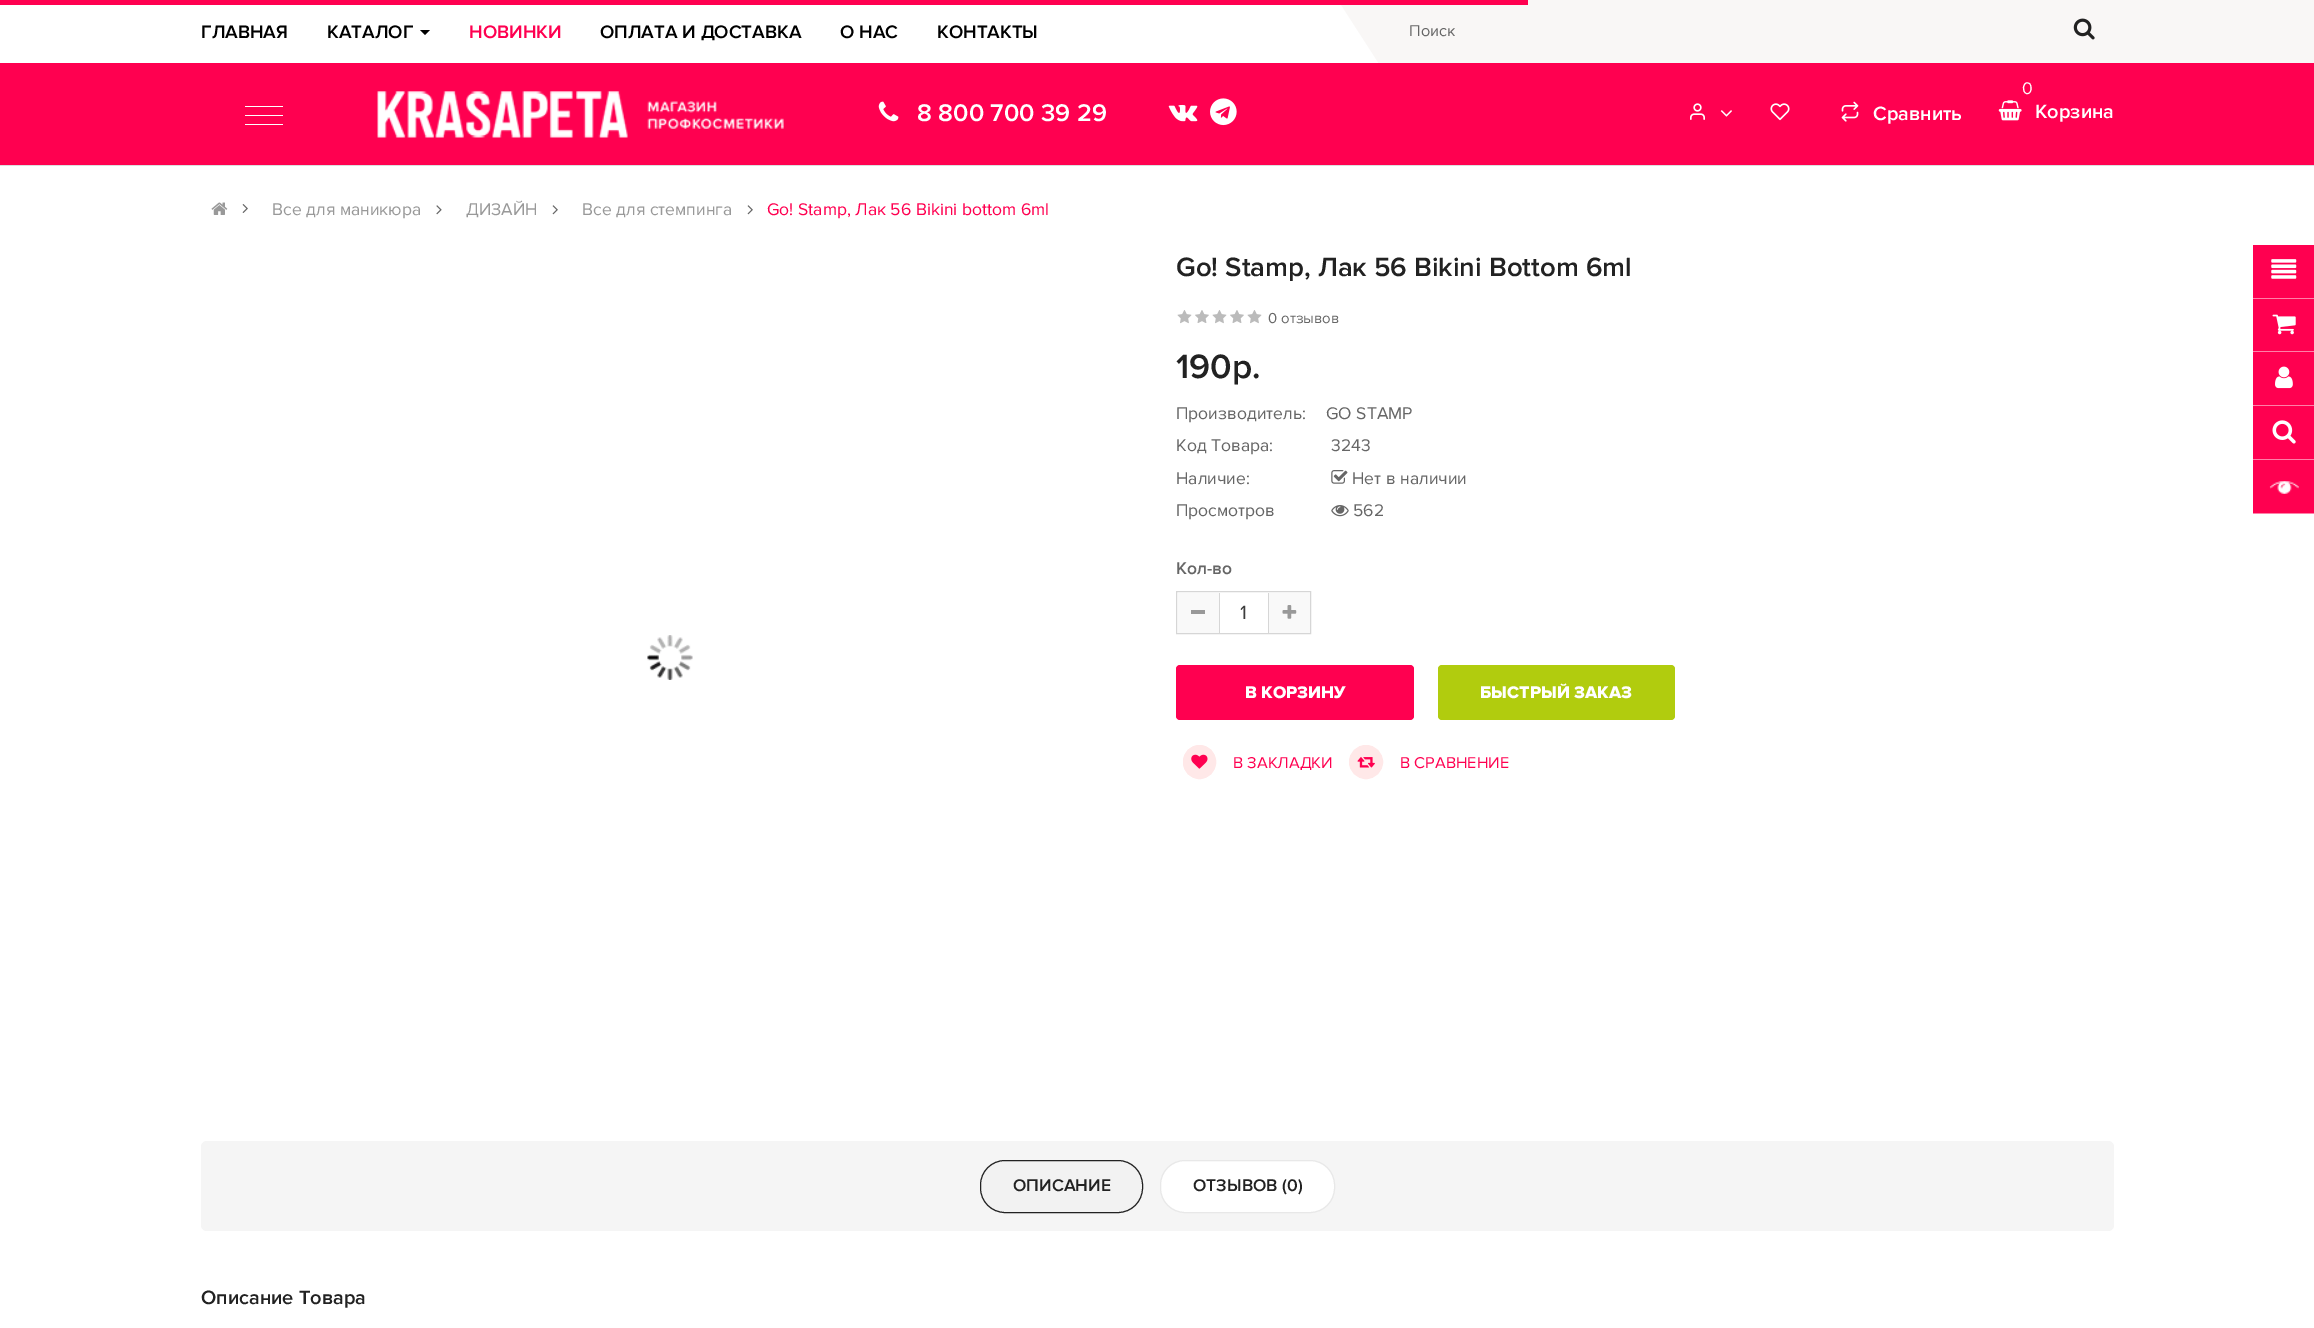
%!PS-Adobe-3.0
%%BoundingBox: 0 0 2314 1328
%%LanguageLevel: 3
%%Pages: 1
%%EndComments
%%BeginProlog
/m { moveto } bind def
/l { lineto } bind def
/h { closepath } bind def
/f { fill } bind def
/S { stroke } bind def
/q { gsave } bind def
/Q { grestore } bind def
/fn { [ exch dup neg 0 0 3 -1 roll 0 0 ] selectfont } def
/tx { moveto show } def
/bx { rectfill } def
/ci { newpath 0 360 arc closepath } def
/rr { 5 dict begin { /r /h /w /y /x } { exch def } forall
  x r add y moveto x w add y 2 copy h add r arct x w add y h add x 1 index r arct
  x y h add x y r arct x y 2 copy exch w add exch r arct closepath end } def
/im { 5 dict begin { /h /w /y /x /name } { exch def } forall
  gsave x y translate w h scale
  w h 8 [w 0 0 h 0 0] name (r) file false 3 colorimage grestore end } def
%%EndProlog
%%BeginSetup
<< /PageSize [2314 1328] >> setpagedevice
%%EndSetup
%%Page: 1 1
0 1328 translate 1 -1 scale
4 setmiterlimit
1 setgray
0 0 2314 1328 bx
0.976 0.969 0.965 setrgbcolor
1338 0 m 1378 0 l 1378 62 l h f
1378 0 936 63 bx
1 0 0.314 setrgbcolor
0 0 1528 5 bx
0 63 2314 102 bx
0.867 setgray
0 165 2314 1 bx
/ProximaNova-SemiBold 18.75 fn
0 setgray
(ГЛАВНАЯ) 201 38 tx
(КАТАЛОГ) 327 38 tx
420 30 m 430 30 l 425 35 l h f
1 0 0.314 setrgbcolor
(НОВИНКИ) 469 38 tx
0 setgray
(ОПЛАТА И ДОСТАВКА) 600 38 tx
(О НАС) 840 38 tx
(КОНТАКТЫ) 937 38 tx
/ProximaNova-Regular 16.25 fn
0.4 setgray
(Поиск) 1409 36 tx
(image0.raw) 2073 18 22 22 im
1 setgray
245 106 38 1 bx
245 115 38 1 bx
245 124 38 1 bx
(image1.raw) 377 91 407 47 im
(image2.raw) 878 101 21 21 im
/ProximaNova-SemiBold 25 fn
(8 800 700 39 29) 917 121 tx
(image3.raw) 1168 104 30 18 im
(image4.raw) 1210 98 27 28 im
(image5.raw) 1690 103 15 17 im
(image6.raw) 1720 110 12 7 im
(image7.raw) 1770 103 20 18 im
(image8.raw) 1841 101 18 21 im
/ProximaNova-SemiBold 20 fn
(Сравнить) 1873 120 tx
(image9.raw) 1998 100 24 21 im
/ProximaNova-Regular 17.5 fn
(0) 2022 94 tx
/ProximaNova-SemiBold 20 fn
(Корзина) 2035 118 tx
(image10.raw) 211 202 17 13 im
(image11.raw) 242 204 6 9 im
/ProximaNova-Regular 17.5 fn
0.6 setgray
(Все для маникюра) 272 215 tx
(image12.raw) 436 205 6 10 im
(ДИЗАЙН) 466 215 tx
(image13.raw) 552 205 6 10 im
(Все для стемпинга) 582 215 tx
(image13.raw) 747 205 6 10 im
1 0 0.314 setrgbcolor
(Go! Stamp, Лак 56 Bikini bottom 6ml) 767 215 tx
(image14.raw) 647 635 46 45 im
/ProximaNova-SemiBold 27.5 fn
0.133 setgray
(Go! Stamp, Лак 56 Bikini Bottom 6ml) 1176 276 tx
(image15.raw) 1177 310 15 14 im
(image16.raw) 1195 310 14 13 im
(image15.raw) 1212 310 15 14 im
(image16.raw) 1230 310 14 13 im
(image15.raw) 1247 310 15 14 im
/ProximaNova-Regular 15 fn
0.4 setgray
(0 отзывов) 1268 323 tx
/ProximaNova-SemiBold 35 fn
0.133 setgray
(190р.) 1176 378 tx
/ProximaNova-Regular 17.5 fn
0.4 setgray
(Производитель:) 1176 419 tx
(GO STAMP) 1326 419 tx
(Код Товара:) 1176 451 tx
(3243) 1331 451 tx
(Наличие:) 1176 484 tx
(image17.raw) 1331 470 17 14 im
(Нет в наличии) 1352 484 tx
(Просмотров) 1176 516 tx
(image18.raw) 1331 505 18 12 im
(562) 1353 516 tx
/ProximaNova-SemiBold 17.5 fn
(Кол-во) 1176 574 tx
0.839 setgray
1176.5 591.5 134 42 rectstroke
0.976 setgray
1178 593 41 40 bx
0.6 setgray
1191 610 14 4 bx
0.839 setgray
1268 593 1 40 bx
1219 593 1 40 bx
/ProximaNova-Regular 20 fn
0.239 setgray
(1) 1240 619 tx
0.976 setgray
1269 593 41 40 bx
(image19.raw) 1282 605 15 14 im
1 0 0.314 setrgbcolor
1176 665 238 55 4 rr f
/ProximaNova-ExtraBold 17.5 fn
1 setgray
(В КОРЗИНУ) 1245 698 tx
0.694 0.8 0.055 setrgbcolor
1438 665 237 55 4 rr f
1 setgray
(БЫСТРЫЙ ЗАКАЗ) 1480 698 tx
1 0.91 0.91 setrgbcolor
1183.5 745.5 32 33 16 rr q f Q
S
(image20.raw) 1191 754 17 15 im
/ProximaNova-Regular 16.25 fn
1 0 0.314 setrgbcolor
(В ЗАКЛАДКИ) 1233 768 tx
1 0.91 0.91 setrgbcolor
1366 762 16.5 ci q f Q
S
(image21.raw) 1357 757 18 11 im
1 0 0.314 setrgbcolor
(В СРАВНЕНИЕ) 1400 768 tx
2253 245 61 268 bx
1 0.502 0.659 setrgbcolor
2253 298 61 1 bx
(image22.raw) 2271 259 26 20 im
2253 351 61 1 bx
(image23.raw) 2272 314 24 21 im
2253 405 61 1 bx
(image24.raw) 2275 366 18 23 im
2253 459 61 1 bx
(image25.raw) 2272 420 24 24 im
2253 513 61 1 bx
(image26.raw) 2269 481 30 13 im
0.961 setgray
201 1141 1913 90 6 rr f
0.949 setgray
980.5 1160.5 162 52 24.5 rr q f Q
0.133 setgray
S
/ProximaNova-SemiBold 17.5 fn
(ОПИСАНИЕ) 1013 1191 tx
1 setgray
1160.5 1160.5 174 52 24.5 rr q f Q
0.91 setgray
S
0.133 setgray
(ОТЗЫВОВ \(0\)) 1193 1191 tx
/ProximaNova-SemiBold 20 fn
(Описание Товара) 201 1304 tx
showpage
%%EOF
